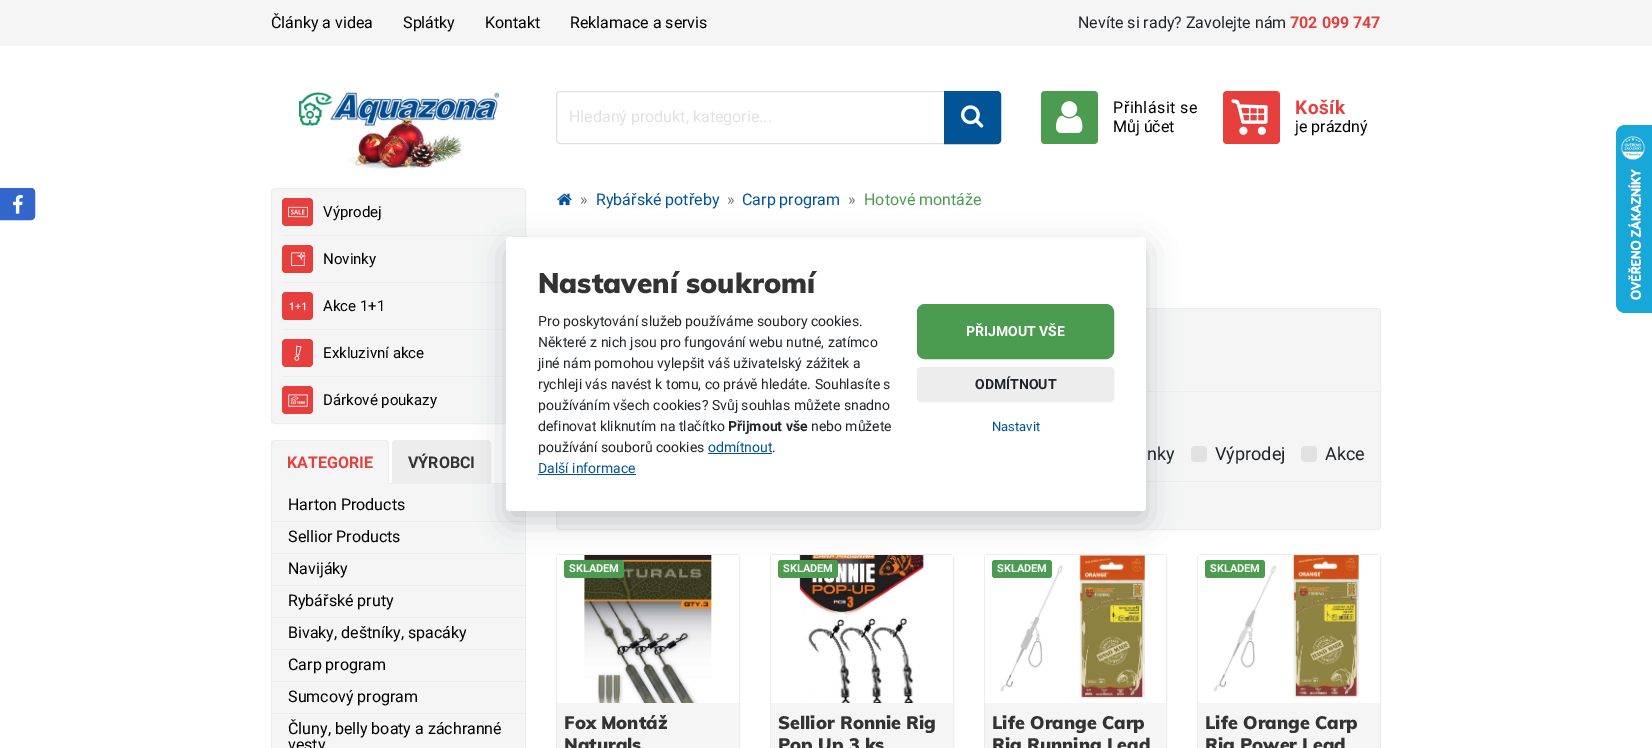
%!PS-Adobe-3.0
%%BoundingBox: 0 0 1652 748
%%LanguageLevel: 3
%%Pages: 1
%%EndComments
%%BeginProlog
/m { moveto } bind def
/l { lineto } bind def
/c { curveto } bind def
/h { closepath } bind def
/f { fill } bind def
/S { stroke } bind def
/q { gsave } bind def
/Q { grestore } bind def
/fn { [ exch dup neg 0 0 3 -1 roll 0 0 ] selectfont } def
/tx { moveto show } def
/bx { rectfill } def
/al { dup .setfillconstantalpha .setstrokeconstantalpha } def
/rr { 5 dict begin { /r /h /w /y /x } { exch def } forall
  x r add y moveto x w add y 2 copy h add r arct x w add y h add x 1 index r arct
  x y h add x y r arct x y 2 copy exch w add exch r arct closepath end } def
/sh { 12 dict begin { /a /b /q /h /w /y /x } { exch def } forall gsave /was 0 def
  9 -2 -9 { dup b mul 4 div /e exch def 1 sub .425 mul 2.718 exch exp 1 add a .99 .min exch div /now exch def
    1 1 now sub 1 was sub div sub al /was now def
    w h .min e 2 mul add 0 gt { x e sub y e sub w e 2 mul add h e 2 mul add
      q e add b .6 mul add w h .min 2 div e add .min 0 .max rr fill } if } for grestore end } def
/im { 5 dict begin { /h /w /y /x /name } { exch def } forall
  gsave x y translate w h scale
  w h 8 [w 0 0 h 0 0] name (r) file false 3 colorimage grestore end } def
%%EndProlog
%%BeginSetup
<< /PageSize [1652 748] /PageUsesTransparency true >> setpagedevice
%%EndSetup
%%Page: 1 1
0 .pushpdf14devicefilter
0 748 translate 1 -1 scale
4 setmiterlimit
1 setgray
0 0 1652 748 bx
0.961 setgray
0 0 1652 46 bx
/Roboto-Regular 16 fn
0 setgray
(Články a videa) 271 28 tx
(Splátky) 403 28 tx
(Kontakt) 485 28 tx
(Reklamace a servis) 570 28 tx
0.129 0.145 0.161 setrgbcolor
(Nevíte si rady? Zavolejte nám) 1078 28 tx
/Roboto-Bold 16 fn
0.906 0.243 0.243 setrgbcolor
(702 099 747) 1290 28 tx
(image0.raw) 299 92 200 78 im
0.882 setgray
560 91.5 m 944.5 91.5 l 944.5 143.5 l 560 143.5 l 558 143.5 556.5 142 556.5 140 c 556.5 95 l 556.5 93 558 91.5 560 91.5 c h S
/Roboto-Regular 16 fn
(Hledaný produkt, kategorie...) 569 122 tx
0.004 0.333 0.592 setrgbcolor
944.5 91.5 m 997 91.5 l 999 91.5 1000.5 93 1000.5 95 c 1000.5 140 l 1000.5 142 999 143.5 997 143.5 c 944.5 143.5 l h q f Q
S
(image1.raw) 961 105 23 23 im
0.294 0.608 0.314 setrgbcolor
1041 91 57 53 4 rr f
(image2.raw) 1056 101 27 32 im
0 setgray
1113 113 m 0.5 0 (Přihlásit se) ashow
(Můj účet) 1113 132 tx
0.906 0.243 0.243 setrgbcolor
1223 91 57 53 4 rr f
(image3.raw) 1231 99 37 36 im
/Roboto-Bold 19 fn
1295 114 m 0.5 0 (Košík) ashow
/Roboto-Regular 16 fn
0 setgray
(je prázdný) 1295 132 tx
0.2 0.4 0.8 setrgbcolor
0.5 188.5 m 31 188.5 l 33 188.5 34.5 190 34.5 192 c 34.5 216 l 34.5 218 33 219.5 31 219.5 c 0.5 219.5 l h q f Q
S
(image4.raw) 13 195 10 19 im
0.961 setgray
271.5 188.5 254 235 3.5 rr q f Q
0.929 setgray
S
0.906 0.243 0.243 setrgbcolor
282 198 31 28 4 rr f
(image5.raw) 288 206 20 12 im
/Roboto-Regular 15 fn
0 setgray
(Výprodej) 323 217 tx
0.929 setgray
282 235 233 1 bx
0.906 0.243 0.243 setrgbcolor
282 245 31 28 4 rr f
(image6.raw) 291 251 15 15 im
0 setgray
(Novinky) 323 264 tx
0.929 setgray
282 282 224 1 bx
0.906 0.243 0.243 setrgbcolor
282 292 31 28 4 rr f
(image7.raw) 289 302 17 9 im
0 setgray
(Akce 1+1) 323 311 tx
0.929 setgray
282 329 224 1 bx
0.906 0.243 0.243 setrgbcolor
282 339 31 28 4 rr f
(image8.raw) 294 345 8 16 im
0 setgray
(Exkluzivní akce) 323 358 tx
0.929 setgray
282 376 224 1 bx
0.906 0.243 0.243 setrgbcolor
282 386 31 28 4 rr f
(image9.raw) 288 394 20 13 im
0 setgray
(Dárkové poukazy) 323 405 tx
0.929 setgray
389 483 117 1 bx
0.961 setgray
275 440 m 385 440 l 387 440 389 442 389 444 c 389 484 l 271 484 l 271 444 l 271 442 273 440 275 440 c h f
0.929 setgray
275 440 m 272 441 l 273 442 l 275 441 l 385 441 l 387 442 l 388 441 l 385 440 l h f
389 484 m 389 444 l 389 443 388 442 388 441 c 387 442 l 389 444 388 478 388 483 c h f
271 484 m 272 483 l 272 478 271 444 273 442 c 272 441 l 271 444 l h f
/Roboto-Bold 16 fn
0.906 0.243 0.243 setrgbcolor
(KATEGORIE) 287 468 tx
0.929 setgray
396 440.5 m 487 440.5 l 489 440.5 490.5 442 490.5 444 c 490.5 483.5 l 392.5 483.5 l 392.5 444 l 392.5 442 394 440.5 396 440.5 c h q f Q
S
0.2 setgray
(VÝROBCI) 408 468 tx
0.961 setgray
272 484 253 264 bx
0.929 setgray
271 484 m 526 484 l 526 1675 l 526 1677 524 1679 522 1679 c 275 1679 l 273 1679 271 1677 271 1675 c h 272 484 m 525 484 l 525 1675 l 525 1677 524 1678 522 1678 c 275 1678 l 273 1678 272 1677 272 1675 c h eofill
/Roboto-Regular 16 fn
0 setgray
(Harton Products) 288 510 tx
0.929 setgray
272 521 m 525 521 l 524 522 l 273 522 l h f
0 setgray
(Sellior Products) 288 542 tx
0.929 setgray
272 553 m 525 553 l 524 554 l 273 554 l h f
0 setgray
(Navijáky) 288 574 tx
0.929 setgray
272 585 m 525 585 l 524 586 l 273 586 l h f
0 setgray
(Rybářské pruty) 288 606 tx
0.929 setgray
272 617 m 525 617 l 524 618 l 273 618 l h f
0 setgray
(Bivaky, deštníky, spacáky) 288 638 tx
0.929 setgray
272 649 m 525 649 l 524 650 l 273 650 l h f
0 setgray
(Carp program) 288 670 tx
0.929 setgray
272 681 m 525 681 l 524 682 l 273 682 l h f
0 setgray
(Sumcový program) 288 702 tx
0.929 setgray
272 713 m 525 713 l 524 714 l 273 714 l h f
0 setgray
(Čluny, belly boaty a záchranné) 288 734 tx
(vesty) 288 750 tx
(image10.raw) 557 193 15 13 im
0.424 0.459 0.49 setrgbcolor
(») 580 205 tx
0.004 0.333 0.592 setrgbcolor
(Rybářské potřeby) 596 205 tx
0.424 0.459 0.49 setrgbcolor
(») 727 205 tx
0.004 0.333 0.592 setrgbcolor
(Carp program) 742 205 tx
0.424 0.459 0.49 setrgbcolor
(») 848 205 tx
0.294 0.608 0.314 setrgbcolor
(Hotové montáže) 864 205 tx
0.961 setgray
556.5 308.5 824 221 3.5 rr q f Q
0.929 setgray
S
1146 391 234 1 bx
/Roboto-Regular 18 fn
0.129 0.145 0.161 setrgbcolor
(nky) 1147 460 tx
0.882 setgray
1191 446 16 16 4 rr f
0.129 0.145 0.161 setrgbcolor
(Výprodej) 1215 460 tx
0.882 setgray
1301 446 16 16 4 rr f
0.129 0.145 0.161 setrgbcolor
(Akce) 1325 460 tx
0.929 setgray
1146 481 234 1 bx
0.961 setgray
556.5 554.5 183 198 3.5 rr q f Q
0.929 setgray
S
(image11.raw) 557 555 182 148 im
0.294 0.608 0.314 setrgbcolor
564 560 60 18 3 rr f
/Roboto-Bold 11 fn
1 setgray
(SKLADEM) 569 572 tx
/Muli-Black 18 fn
0.2 setgray
(Fox Montáž) 564 729 tx
(Naturals) 564 751 tx
0.961 setgray
770.5 554.5 183 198 3.5 rr q f Q
0.929 setgray
S
(image12.raw) 771 555 182 148 im
0.294 0.608 0.314 setrgbcolor
778 560 60 18 3 rr f
/Roboto-Bold 11 fn
1 setgray
(SKLADEM) 783 572 tx
/Muli-Black 18 fn
0.2 setgray
(Sellior Ronnie Rig) 778 729 tx
(Pop Up 3 ks) 778 751 tx
0.961 setgray
984.5 554.5 182 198 3.5 rr q f Q
0.929 setgray
S
(image13.raw) 985 555 181 148 im
0.294 0.608 0.314 setrgbcolor
992 560 60 18 3 rr f
/Roboto-Bold 11 fn
1 setgray
(SKLADEM) 997 572 tx
/Muli-Black 18 fn
0.2 setgray
(Life Orange Carp) 992 729 tx
(Rig Running Lead) 992 751 tx
0.961 setgray
1197.5 554.5 183 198 3.5 rr q f Q
0.929 setgray
S
(image14.raw) 1198 555 182 148 im
0.294 0.608 0.314 setrgbcolor
1205 560 60 18 3 rr f
/Roboto-Bold 11 fn
1 setgray
(SKLADEM) 1210 572 tx
/Muli-Black 18 fn
0.2 setgray
(Life Orange Carp) 1205 729 tx
(Rig Power Lead) 1205 751 tx
(image15.raw) 1616 125 36 188 im
0.204 0.227 0.251 setrgbcolor
506 247 640 274 4 15 0.25 sh
1 setgray
506 237 640 274 4 rr f
/Muli-Black 28 fn
0.2 setgray
(Nastavení soukromí) 538 293 tx
/Roboto-Regular 14 fn
0.129 0.145 0.161 setrgbcolor
(Pro poskytování služeb používáme soubory cookies.) 538 326 tx
(Některé z nich jsou pro fungování webu nutné, zatímco) 538 347 tx
(jiné nám pomohou vylepšit váš uživatelský zážitek a) 538 368 tx
(rychleji vás navést k tomu, co právě hledáte. Souhlasíte s) 538 389 tx
(používáním všech cookies? Svůj souhlas můžete snadno) 538 410 tx
(definovat kliknutím na tlačítko) 538 431 tx
/Roboto-Bold 14 fn
(Přijmout vše) 728 431 tx
/Roboto-Regular 14 fn
(nebo můžete) 811 431 tx
(používání souborů cookies) 538 452 tx
0.004 0.333 0.592 setrgbcolor
(odmítnout) 708 452 tx
708 453 64 1 bx
0.129 0.145 0.161 setrgbcolor
(.) 772 452 tx
0.004 0.333 0.592 setrgbcolor
(Další informace) 538 473 tx
538 474 98 1 bx
0.294 0.608 0.314 setrgbcolor
917.5 304.5 196 54 7.5 rr q f Q
S
/Roboto-Bold 14 fn
1 setgray
(PŘIJMOUT VŠE) 966 336 tx
0.929 setgray
917.5 367.5 196 34 3.5 rr q f Q
S
0.129 0.145 0.161 setrgbcolor
(ODMÍTNOUT) 975 389 tx
/Roboto-Regular 13 fn
0.004 0.333 0.592 setrgbcolor
(Nastavit) 992 431 tx
.poppdf14devicefilter showpage
%%EOF
